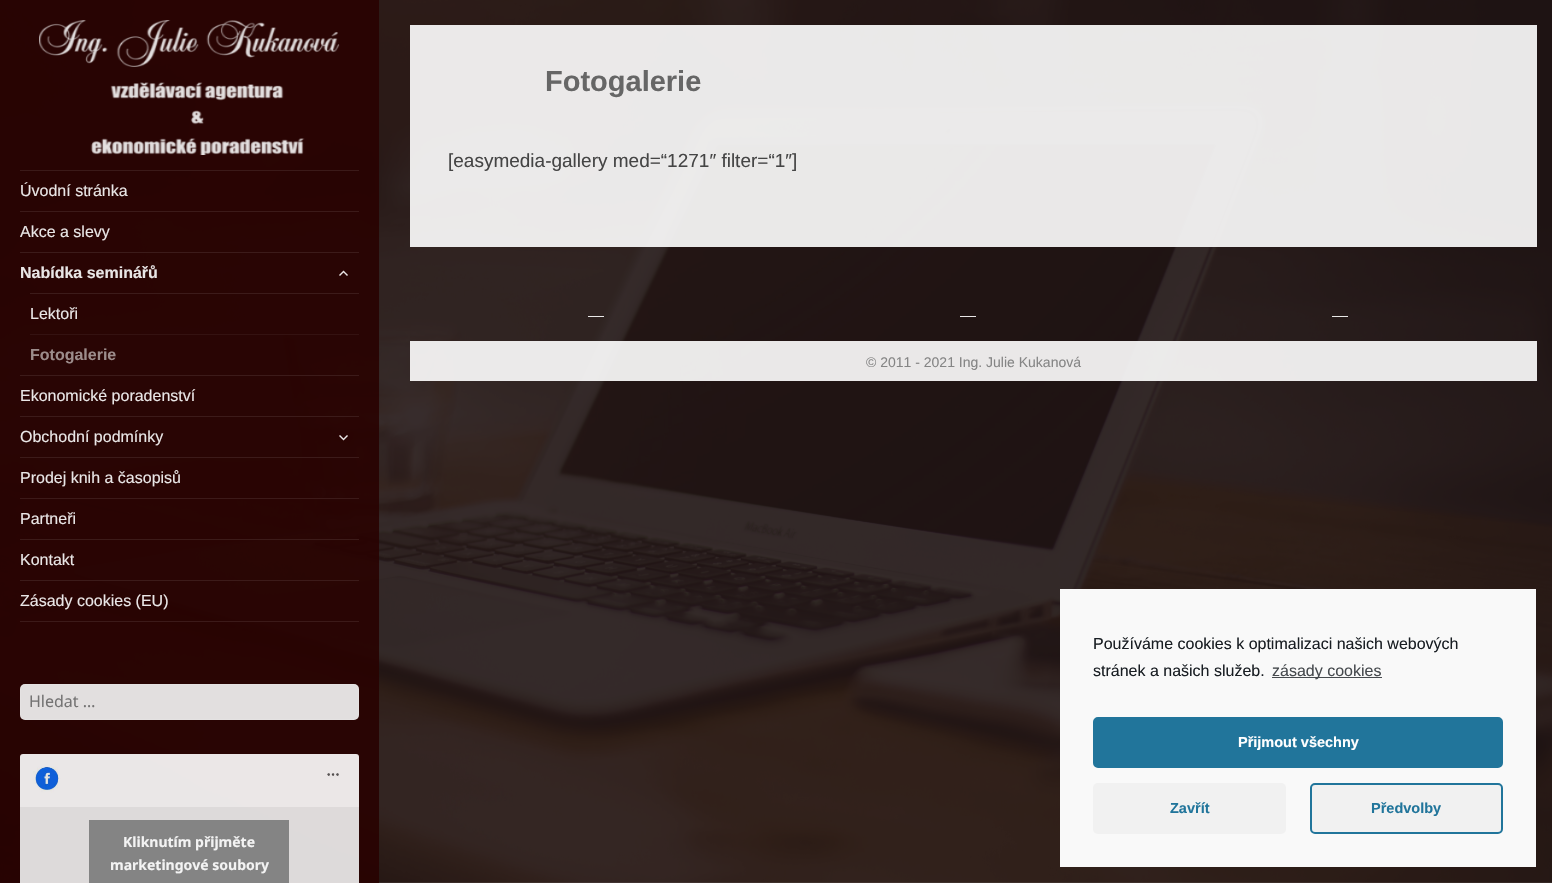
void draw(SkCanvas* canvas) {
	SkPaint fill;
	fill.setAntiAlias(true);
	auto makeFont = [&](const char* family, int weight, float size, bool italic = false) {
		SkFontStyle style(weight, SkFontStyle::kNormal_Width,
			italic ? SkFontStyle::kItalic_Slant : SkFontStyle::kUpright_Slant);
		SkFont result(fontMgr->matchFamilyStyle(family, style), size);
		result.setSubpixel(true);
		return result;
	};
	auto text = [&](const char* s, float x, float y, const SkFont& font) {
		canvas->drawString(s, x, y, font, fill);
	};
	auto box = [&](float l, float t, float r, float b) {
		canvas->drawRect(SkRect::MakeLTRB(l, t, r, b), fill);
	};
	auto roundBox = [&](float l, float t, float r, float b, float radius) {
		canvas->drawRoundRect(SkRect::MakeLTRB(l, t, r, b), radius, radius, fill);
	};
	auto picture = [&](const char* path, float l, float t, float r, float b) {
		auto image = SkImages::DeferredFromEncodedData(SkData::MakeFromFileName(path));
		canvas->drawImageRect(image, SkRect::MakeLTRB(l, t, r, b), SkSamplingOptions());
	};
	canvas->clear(0xFFFFFFFF);
	picture("image0.png", 0, 0, 1552, 883);
	fill.setColor(0xE6280100);
	box(0, 0, 379, 883);
	picture("image1.png", 39, 20, 340, 155);
	fill.setColor(0xFF3B1A19);
	box(20, 170, 359, 171);
	fill.setColor(0xFF3C1A19);
	box(20, 621, 359, 622);
	box(20, 211, 359, 212);
	fill.setColor(0xFF3C1B1A);
	box(20, 252, 359, 253);
	picture("image2.png", 339, 270, 348, 276);
	box(30, 293, 359, 294);
	fill.setColor(0xFF341211);
	box(30, 334, 359, 335);
	fill.setColor(0xFF3C1B1A);
	box(20, 375, 359, 376);
	box(20, 416, 359, 417);
	picture("image3.png", 339, 435, 348, 441);
	box(20, 457, 359, 458);
	fill.setColor(0xFF3C1A19);
	box(20, 498, 359, 499);
	fill.setColor(0xFF3C1B19);
	box(20, 539, 359, 540);
	fill.setColor(0xFF3C1B1A);
	box(20, 580, 359, 581);
	fill.setColor(0xFFE2DFDF);
	roundBox(20, 684, 359, 720, 5);
	fill.setStyle(SkPaint::kStroke_Style);
	fill.setStrokeWidth(1);
	fill.setColor(0x17FFFFFF);
	canvas->drawRoundRect(SkRect::MakeLTRB(20.5f, 684.5f, 358.5f, 719.5f), 4.5f, 4.5f, fill);
	picture("image4.png", 20, 754, 359, 883);
	fill.setStyle(SkPaint::kFill_Style);
	fill.setColor(0xFF848484);
	box(89, 820, 289, 883);
	fill.setColor(0xE6FFFFFF);
	box(410, 25, 1537, 247);
	fill.setColor(0xFFEAE9E9);
	box(588, 316, 604, 317);
	fill.setColor(0xFFE9E7E7);
	box(960, 316, 976, 317);
	fill.setColor(0xFFE9E8E8);
	box(1332, 316, 1348, 317);
	fill.setColor(0xE6FFFFFF);
	box(410, 341, 1537, 381);
	fill.setColor(0xFFF9F9F9);
	box(1060, 589, 1536, 867);
	fill.setColor(0xFF464A4E);
	box(1272, 677, 1382, 678);
	fill.setColor(0xFF21759B);
	canvas->drawRoundRect(SkRect::MakeLTRB(1094, 718, 1502, 767), 4, 4, fill);
	fill.setStyle(SkPaint::kStroke_Style);
	fill.setStrokeWidth(2);
	canvas->drawRoundRect(SkRect::MakeLTRB(1094, 718, 1502, 767), 4, 4, fill);
	fill.setStyle(SkPaint::kFill_Style);
	fill.setColor(0xFFF1F1F1);
	roundBox(1093, 783, 1286, 834, 5);
	canvas->drawRoundRect(SkRect::MakeLTRB(1311, 784, 1502, 833), 4, 4, fill);
	fill.setStyle(SkPaint::kStroke_Style);
	fill.setColor(0xFF21759B);
	canvas->drawRoundRect(SkRect::MakeLTRB(1311, 784, 1502, 833), 4, 4, fill);
	auto font1 = makeFont("Liberation Sans", 400, 16);
	fill.setStyle(SkPaint::kFill_Style);
	fill.setColor(0xFFE9E6E6);
	text("Úvodní stránka", 20, 196, font1);
	text("Akce a slevy", 20, 237, font1);
	auto font2 = makeFont("Liberation Sans", 700, 16);
	text("Nabídka seminářů", 20, 278, font2);
	text("Lektoři", 30, 319, font1);
	fill.setColor(0xFF9C8C8B);
	text("Fotogalerie", 30, 360, font2);
	fill.setColor(0xFFE9E6E6);
	text("Ekonomické poradenství", 20, 401, font1);
	text("Obchodní podmínky", 20, 442, font1);
	text("Prodej knih a časopisů", 20, 483, font1);
	text("Partneři", 20, 524, font1);
	text("Kontakt", 20, 565, font1);
	text("Zásady cookies (EU)", 20, 606, font1);
	auto font3 = makeFont("Noto Sans", 400, 16);
	fill.setColor(0xFF747373);
	text("Hledat …", 29, 707, font3);
	auto font4 = makeFont("Noto Sans", 700, 14);
	fill.setColor(0xFFF3F3F3);
	text("Kliknutím přijměte", 123, 847, font4);
	text("marketingové soubory", 110, 870, font4);
	auto font5 = makeFont("Liberation Sans", 700, 29);
	fill.setColor(0xFF666666);
	text("Fotogalerie", 545, 91, font5);
	auto font6 = makeFont("Liberation Sans", 400, 19);
	fill.setColor(0xFF454545);
	text("[easymedia-gallery med=“1271″ filter=“1″]", 448, 167, font6);
	auto font7 = makeFont("Liberation Sans", 400, 14);
	fill.setColor(0xFF858585);
	text("© 2011 - 2021 Ing. Julie Kukanová", 866, 367, font7);
	fill.setColor(0xFF191E23);
	text("Používáme cookies k optimalizaci našich webových", 1093, 649, font1);
	text("stránek a našich služeb.", 1093, 676, font1);
	fill.setColor(0xFF464A4E);
	text("zásady cookies", 1272, 676, font1);
	auto font8 = makeFont("Liberation Sans", 700, 14.5f);
	fill.setColor(0xFFFFFFFF);
	text("Přijmout všechny", 1238, 747, font8);
	fill.setColor(0xFF21759B);
	text("Zavřít", 1170, 813, font8);
	text("Předvolby", 1371, 813, font8);
}
